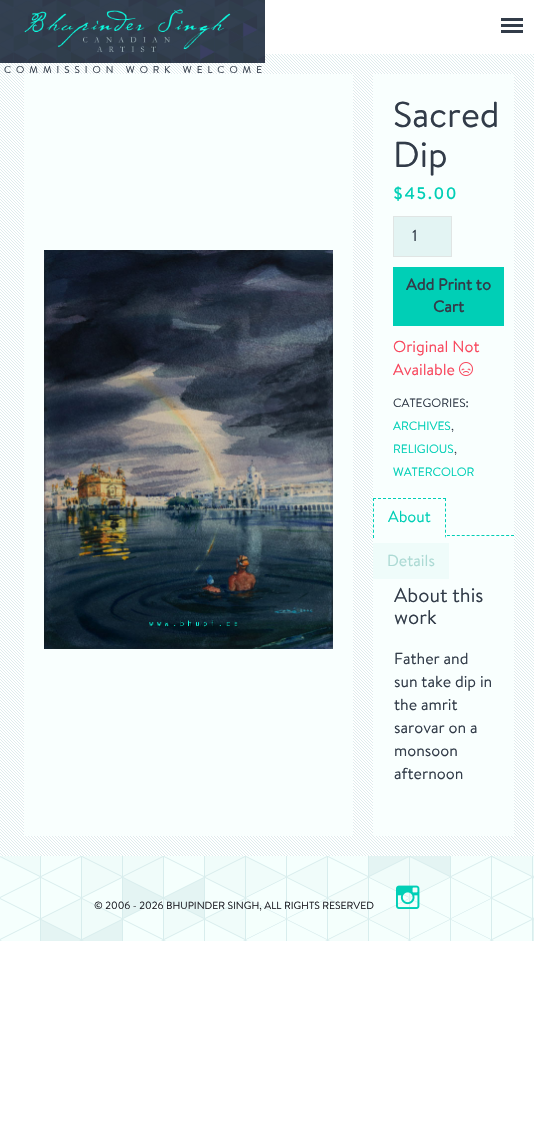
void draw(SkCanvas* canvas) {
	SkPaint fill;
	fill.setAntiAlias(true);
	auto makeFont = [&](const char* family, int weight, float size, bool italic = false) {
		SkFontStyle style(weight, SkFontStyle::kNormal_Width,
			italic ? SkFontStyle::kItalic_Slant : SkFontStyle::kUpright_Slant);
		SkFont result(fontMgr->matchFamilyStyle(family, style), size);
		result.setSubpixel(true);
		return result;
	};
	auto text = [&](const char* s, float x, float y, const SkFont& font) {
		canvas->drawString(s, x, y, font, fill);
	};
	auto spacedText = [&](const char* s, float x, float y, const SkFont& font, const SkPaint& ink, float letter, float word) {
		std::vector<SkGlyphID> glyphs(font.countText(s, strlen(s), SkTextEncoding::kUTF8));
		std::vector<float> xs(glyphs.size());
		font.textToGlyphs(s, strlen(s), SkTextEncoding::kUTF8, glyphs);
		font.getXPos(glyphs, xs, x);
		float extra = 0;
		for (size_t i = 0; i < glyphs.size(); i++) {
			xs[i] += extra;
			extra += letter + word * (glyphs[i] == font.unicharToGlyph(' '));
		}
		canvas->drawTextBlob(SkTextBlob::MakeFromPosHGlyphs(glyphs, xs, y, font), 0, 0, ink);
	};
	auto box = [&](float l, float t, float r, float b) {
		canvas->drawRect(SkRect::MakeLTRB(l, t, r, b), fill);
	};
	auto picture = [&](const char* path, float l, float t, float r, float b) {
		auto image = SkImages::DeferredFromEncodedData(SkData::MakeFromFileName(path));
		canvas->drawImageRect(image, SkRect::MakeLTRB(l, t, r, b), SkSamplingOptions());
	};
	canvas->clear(0xFFFFFFFF);
	picture("image1.png", 0, 54, 534, 856);
	picture("image0.png", 0, 0, 265, 63);
	fill.setColor(0xFF323C49);
	box(501, 18, 523, 21);
	box(501, 24, 523, 27);
	box(501, 30, 523, 33);
	fill.setColor(0xFFF9FFFE);
	box(24, 74, 353, 836);
	picture("image2.png", 44, 250, 333, 649);
	box(373, 74, 514, 836);
	fill.setColor(0xFFE3F4F3);
	canvas->drawRect(SkRect::MakeLTRB(393.5f, 216.5f, 451.5f, 256.5f), fill);
	fill.setStyle(SkPaint::kStroke_Style);
	fill.setStrokeWidth(1);
	fill.setColor(0xFFE0E5E4);
	canvas->drawRect(SkRect::MakeLTRB(393.5f, 216.5f, 451.5f, 256.5f), fill);
	fill.setStyle(SkPaint::kFill_Style);
	fill.setColor(0xFF00CFB6);
	box(393, 267, 504, 326);
	picture("image3.png", 459, 362, 473, 376);
	fill.setStyle(SkPaint::kStroke_Style);
	fill.setPathEffect(SkDashPathEffect::Make({{3, 1.93f}}, 0));
	canvas->drawPath(SkPathBuilder().moveTo(373, 535.5f).lineTo(514, 535.5f).detach(), fill);
	fill.setPathEffect(nullptr);
	fill.setStyle(SkPaint::kFill_Style);
	fill.setColor(0xFFF9FFFE);
	box(373, 535, 446, 536);
	fill.setStyle(SkPaint::kStroke_Style);
	fill.setColor(0xFF00CFB6);
	fill.setPathEffect(SkDashPathEffect::Make({{3, 2}}, 0));
	canvas->drawPath(SkPathBuilder().moveTo(373, 498.5f).lineTo(446, 498.5f).detach(), fill);
	fill.setPathEffect(nullptr);
	fill.setPathEffect(SkDashPathEffect::Make({{3, 2.29f}}, 0));
	canvas->drawPath(SkPathBuilder().moveTo(445.5f, 498).lineTo(445.5f, 538).detach(), fill);
	fill.setPathEffect(nullptr);
	fill.setStyle(SkPaint::kFill_Style);
	fill.setColor(0xFFF9FFFE);
	canvas->drawPath(SkPathBuilder().moveTo(446, 538).lineTo(373, 538).lineTo(374, 536).lineTo(445, 536).close().detach(), fill);
	fill.setStyle(SkPaint::kStroke_Style);
	fill.setColor(0xFF00CFB6);
	fill.setPathEffect(SkDashPathEffect::Make({{3, 2.29f}}, 0));
	canvas->drawPath(SkPathBuilder().moveTo(373.5f, 498).lineTo(373.5f, 538).detach(), fill);
	fill.setPathEffect(nullptr);
	fill.setStyle(SkPaint::kFill_Style);
	fill.setColor(0xFFEFFCFA);
	box(373, 543, 449, 579);
	fill.setColor(0xFFD8EDED);
	box(0, 856, 534, 941);
	picture("image4.png", 0, 856, 534, 941);
	picture("image5.png", 396, 885, 420, 909);
	auto font1 = makeFont("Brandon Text", 400, 10);
	fill.setColor(0xFF323C49);
	spacedText("COMMISSION WORK WELCOME", 4, 73, font1, fill, 5, 0);
	auto font2 = makeFont("Brandon Text", 400, 36);
	text("Sacred", 393, 127, font2);
	text("Dip", 393, 167, font2);
	auto font3 = makeFont("Brandon Text", 700, 16);
	fill.setColor(0xFF00CFB6);
	spacedText("$45.00", 393, 199, font3, fill, 2, 0);
	auto font4 = makeFont("Brandon Text", 400, 16);
	fill.setColor(0xFF323C49);
	text("1", 412, 241, font4);
	text("Add Print to", 406, 290, font3);
	text("Cart", 433, 312, font3);
	fill.setColor(0xFFF8485E);
	text("Original Not", 393, 352, font4);
	text("Available", 393, 375, font4);
	auto font5 = makeFont("Brandon Text", 400, 12);
	fill.setColor(0xFF323C49);
	text("CATEGORIES:", 393, 407, font5);
	fill.setColor(0xFF00CFB6);
	text("ARCHIVES", 393, 430, font5);
	fill.setColor(0xFF323C49);
	text(",", 451, 430, font5);
	fill.setColor(0xFF00CFB6);
	text("RELIGIOUS", 393, 453, font5);
	fill.setColor(0xFF323C49);
	text(",", 454, 453, font5);
	fill.setColor(0xFF00CFB6);
	text("WATERCOLOR", 393, 476, font5);
	text("About", 388, 522, font4);
	fill.setColor(0xFFACDAD4);
	text("Details", 387, 566, font4);
	auto font6 = makeFont("Brandon Text", 400, 20);
	fill.setColor(0xFF323C49);
	text("About this", 394, 602, font6);
	text("work", 394, 624, font6);
	text("Father and", 394, 664, font4);
	text("sun take dip in", 394, 687, font4);
	text("the amrit", 394, 710, font4);
	text("sarovar on a", 394, 733, font4);
	text("monsoon", 394, 756, font4);
	text("afternoon", 394, 779, font4);
	auto font7 = makeFont("Brandon Text", 400, 10.4f);
	fill.setColor(0xFF1D1D24);
	text("© 2006 - 2026 BHUPINDER SINGH, ALL RIGHTS RESERVED", 94, 909, font7);
}
